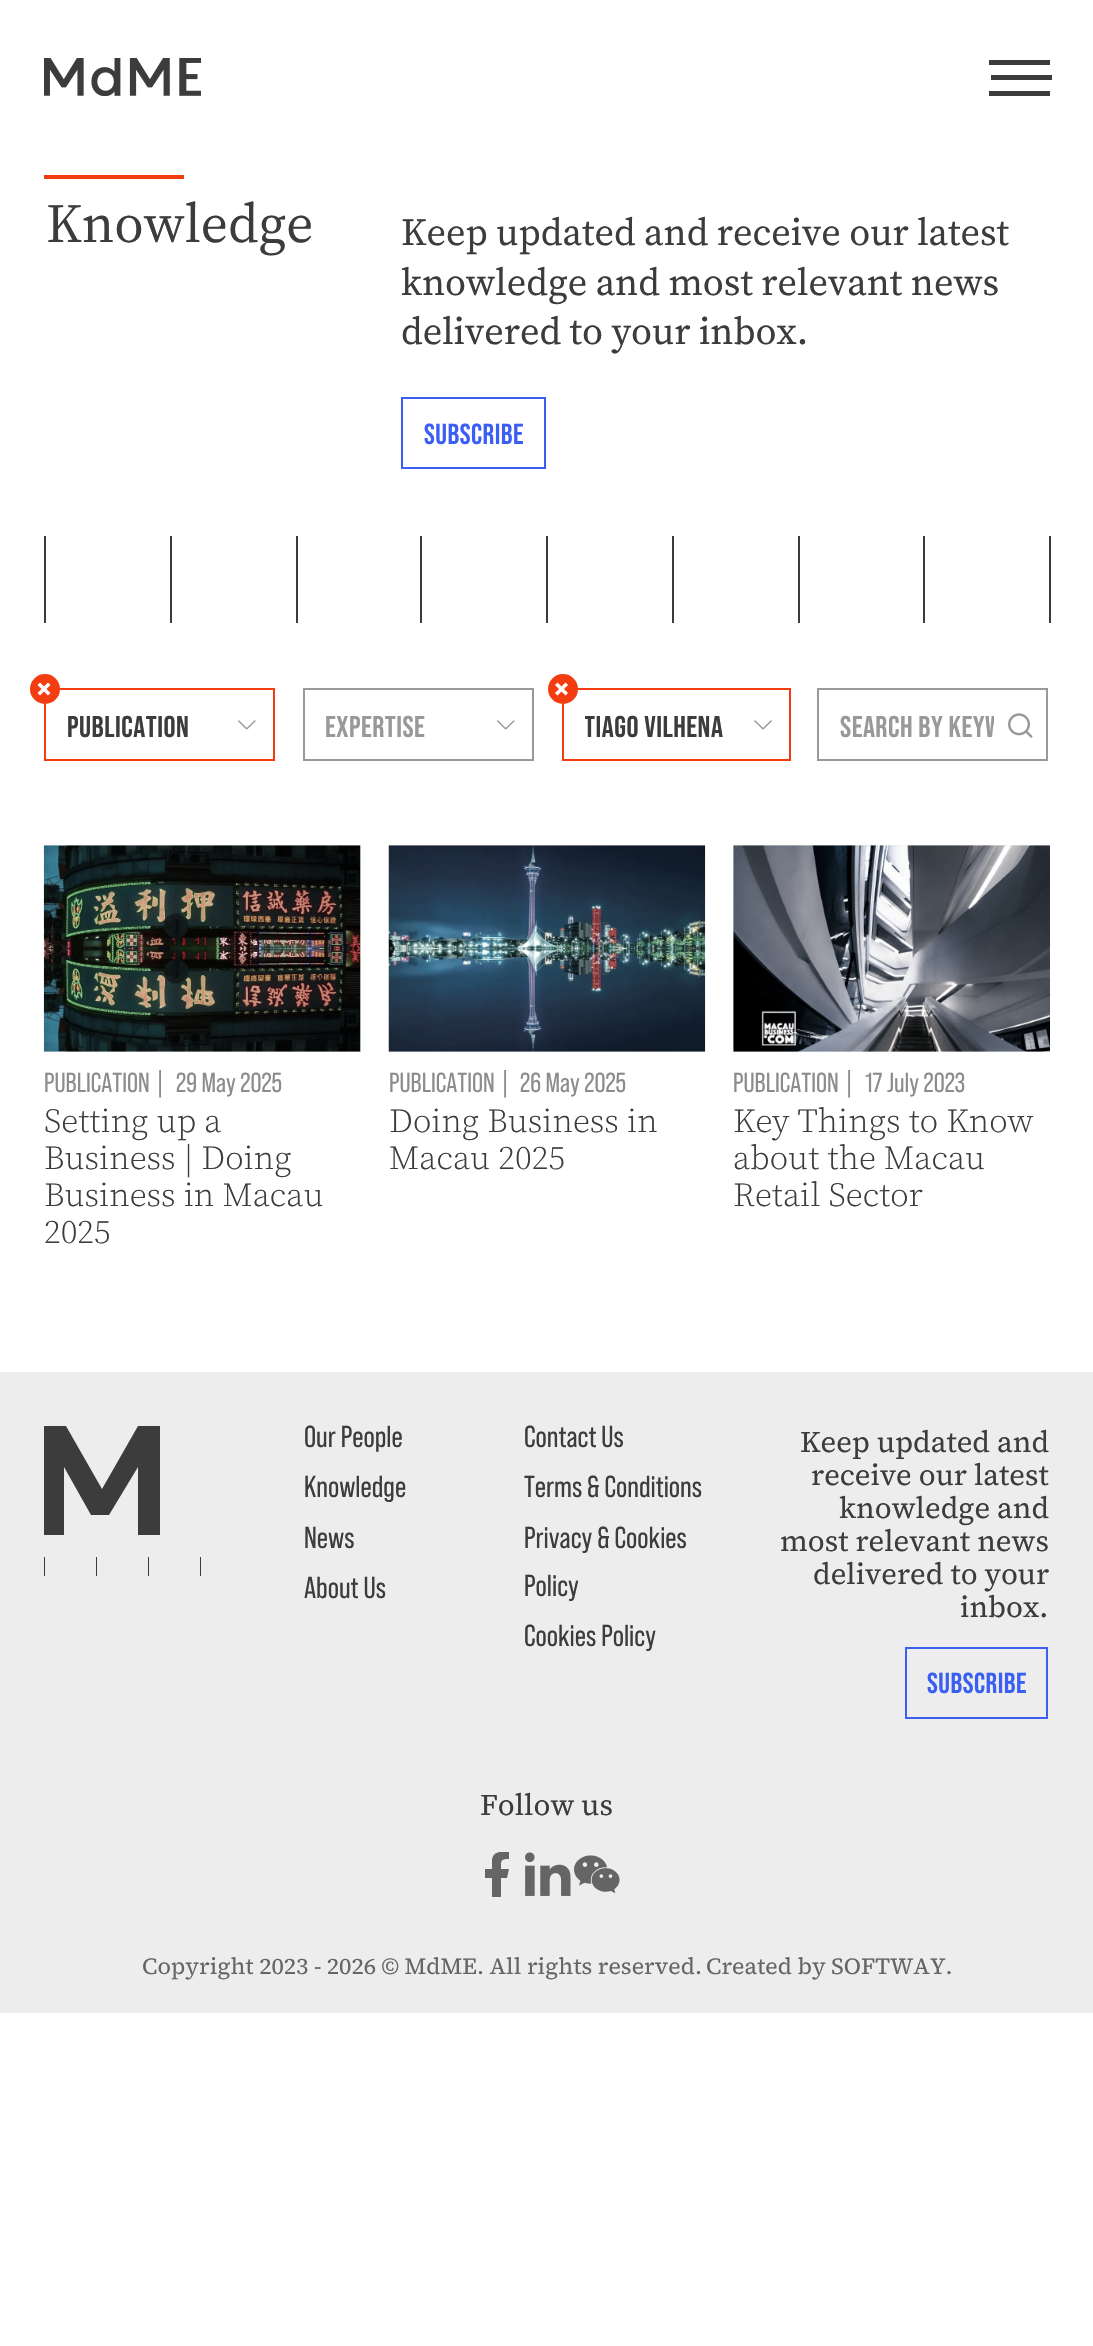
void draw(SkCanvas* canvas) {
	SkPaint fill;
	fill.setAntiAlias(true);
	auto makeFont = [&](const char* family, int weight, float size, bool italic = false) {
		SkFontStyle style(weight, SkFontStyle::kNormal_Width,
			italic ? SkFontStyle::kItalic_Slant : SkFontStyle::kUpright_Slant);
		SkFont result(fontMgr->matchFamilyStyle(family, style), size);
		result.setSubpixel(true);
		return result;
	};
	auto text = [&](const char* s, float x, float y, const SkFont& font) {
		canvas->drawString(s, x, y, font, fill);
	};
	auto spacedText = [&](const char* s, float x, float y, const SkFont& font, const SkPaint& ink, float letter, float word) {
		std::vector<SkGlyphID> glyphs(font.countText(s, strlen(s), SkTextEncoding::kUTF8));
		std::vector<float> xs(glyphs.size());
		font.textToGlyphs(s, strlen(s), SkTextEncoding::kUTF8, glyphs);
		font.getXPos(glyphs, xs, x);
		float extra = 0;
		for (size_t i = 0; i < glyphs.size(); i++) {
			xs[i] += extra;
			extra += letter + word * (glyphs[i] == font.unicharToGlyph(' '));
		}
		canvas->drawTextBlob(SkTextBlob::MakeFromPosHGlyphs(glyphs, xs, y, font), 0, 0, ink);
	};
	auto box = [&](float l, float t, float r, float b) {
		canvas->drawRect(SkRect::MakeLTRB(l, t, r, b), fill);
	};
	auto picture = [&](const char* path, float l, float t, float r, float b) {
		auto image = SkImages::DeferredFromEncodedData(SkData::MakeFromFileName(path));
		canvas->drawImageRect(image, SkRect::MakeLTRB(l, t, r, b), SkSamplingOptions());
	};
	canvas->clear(0xFFFFFFFF);
	picture("image0.png", 44, 58, 201, 96);
	fill.setColor(0xFF3C3C3C);
	box(989, 60, 1050, 65);
	box(991, 75, 1052, 80);
	box(989, 91, 1050, 96);
	fill.setColor(0xFFF33C10);
	box(44, 175, 184, 179);
	fill.setStyle(SkPaint::kStroke_Style);
	fill.setStrokeWidth(2);
	fill.setColor(0xFF3A5FF2);
	canvas->drawRect(SkRect::MakeLTRB(402, 398, 545, 468), fill);
	fill.setStyle(SkPaint::kFill_Style);
	fill.setColor(0xFF3C3C3C);
	box(44, 536, 46, 623);
	box(170, 536, 172, 623);
	box(296, 536, 298, 623);
	box(420, 536, 422, 623);
	box(546, 536, 548, 623);
	box(672, 536, 674, 623);
	box(798, 536, 800, 623);
	box(923, 536, 925, 623);
	box(1049, 536, 1051, 623);
	fill.setStyle(SkPaint::kStroke_Style);
	fill.setColor(0xFFF33C10);
	canvas->drawRect(SkRect::MakeLTRB(45, 689, 274, 760), fill);
	fill.setStyle(SkPaint::kFill_Style);
	canvas->drawCircle(45, 689, 15, fill);
	fill.setColor(0xFFFFFFFF);
	canvas->drawPath(SkPathBuilder().moveTo(37.5f, 693).lineTo(48, 682.5f).lineTo(50.5f, 685).lineTo(40, 695.5f).close().detach(), fill);
	canvas->drawPath(SkPathBuilder().moveTo(40, 682.5f).lineTo(50.5f, 693).lineTo(48, 695.5f).lineTo(37.5f, 685).close().detach(), fill);
	picture("image1.png", 238, 720, 256, 730);
	fill.setStyle(SkPaint::kStroke_Style);
	fill.setColor(0xFF999999);
	canvas->drawRect(SkRect::MakeLTRB(304, 689, 533, 760), fill);
	picture("image1.png", 497, 720, 515, 730);
	fill.setColor(0xFFF33C10);
	canvas->drawRect(SkRect::MakeLTRB(563, 689, 790, 760), fill);
	fill.setStyle(SkPaint::kFill_Style);
	canvas->drawCircle(563, 689, 15, fill);
	fill.setColor(0xFFFFFFFF);
	canvas->drawPath(SkPathBuilder().moveTo(555, 693).lineTo(565.5f, 682.5f).lineTo(568, 685).lineTo(557.5f, 695.5f).close().detach(), fill);
	canvas->drawPath(SkPathBuilder().moveTo(557.5f, 682.5f).lineTo(568, 693).lineTo(565.5f, 695.5f).lineTo(555, 685).close().detach(), fill);
	picture("image2.png", 754, 720, 772, 730);
	fill.setStyle(SkPaint::kStroke_Style);
	fill.setColor(0xFF999999);
	canvas->drawRect(SkRect::MakeLTRB(818, 689, 1047, 760), fill);
	picture("image3.png", 1008, 713, 1033, 738);
	fill.setStyle(SkPaint::kFill_Style);
	fill.setColor(0xFFEDEDED);
	box(44, 845, 361, 1052);
	picture("image4.png", 43, 845, 361, 1052);
	box(389, 845, 705, 1052);
	picture("image5.png", 388, 845, 706, 1052);
	box(733, 845, 1050, 1052);
	picture("image6.png", 733, 845, 1050, 1052);
	box(0, 1372, 1093, 2013);
	fill.setColor(0xFF3C3C3C);
	canvas->drawPath(SkPathBuilder().moveTo(149, 1557).lineTo(148, 1557).lineTo(148, 1576).lineTo(149, 1576).close().moveTo(45, 1557).lineTo(44, 1557).lineTo(44, 1576).lineTo(45, 1576).close().moveTo(97, 1557).lineTo(96, 1557).lineTo(96, 1576).lineTo(97, 1576).close().moveTo(201, 1557).lineTo(200, 1557).lineTo(200, 1576).lineTo(201, 1576).close().moveTo(102, 1489).lineTo(66, 1426).lineTo(44, 1426).lineTo(44, 1535).lineTo(64, 1535).lineTo(64, 1467).lineTo(91, 1515).lineTo(109, 1515).lineTo(138, 1467).lineTo(138, 1535).lineTo(160, 1535).lineTo(160, 1426).lineTo(138, 1426).close().detach(), fill);
	fill.setStyle(SkPaint::kStroke_Style);
	fill.setColor(0xFF3A5FF2);
	canvas->drawRect(SkRect::MakeLTRB(906, 1648, 1047, 1718), fill);
	canvas->save();
	canvas->clipRect(SkRect::MakeLTRB(474, 1852, 520, 1897));
	fill.setStyle(SkPaint::kFill_Style);
	fill.setColor(0xFF656565);
	canvas->drawPath(SkPathBuilder().moveTo(501, 1878).lineTo(507, 1878).lineTo(509, 1869).lineTo(501, 1869).cubicTo(501, 1861, 500, 1859, 509, 1859).lineTo(509, 1852).cubicTo(502, 1851, 493, 1851, 492, 1860).lineTo(492, 1869).lineTo(485, 1869).lineTo(485, 1878).lineTo(492, 1878).lineTo(492, 1897).lineTo(501, 1897).close().detach(), fill);
	canvas->restore();
	picture("image7.png", 525, 1852, 571, 1896);
	picture("image8.png", 574, 1855, 620, 1893);
	auto font1 = makeFont("Source Serif 4", 400, 55);
	fill.setColor(0xFF3C3C3C);
	text("Knowledge", 46, 242, font1);
	auto font2 = makeFont("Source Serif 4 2", 400, 38.25f);
	spacedText("Keep updated and receive our latest", 401, 245, font2, fill, 0, -0.5f);
	spacedText("knowledge and most relevant news", 401, 295, font2, fill, 0, -0.5f);
	spacedText("delivered to your inbox.", 401, 344, font2, fill, 0, -0.5f);
	auto font3 = makeFont("Bebas Neue", 700, 29);
	fill.setColor(0xFF3A5FF2);
	spacedText("SUBSCRIBE", 424, 444, font3, fill, 0.5f, 0);
	auto font4 = makeFont("Bebas Neue", 700, 30);
	fill.setColor(0xFF3C3C3C);
	spacedText("PUBLICATION", 67, 737, font4, fill, 0.5f, 0);
	fill.setColor(0xFF999999);
	spacedText("EXPERTISE", 325, 737, font4, fill, 0.5f, 0);
	canvas->save();
	canvas->clipRect(SkRect::MakeLTRB(585, 707, 723, 742));
	fill.setColor(0xFF3C3C3C);
	spacedText("TIAGO VILHENA", 584, 737, font4, fill, 0.5f, 0);
	canvas->restore();
	canvas->save();
	canvas->clipRect(SkRect::MakeLTRB(840, 707, 994, 742));
	fill.setColor(0xFF999999);
	spacedText("SEARCH BY KEYW", 840, 737, font4, fill, 0.5f, 0);
	canvas->restore();
	auto font5 = makeFont("Bebas Neue", 400, 27.5f);
	fill.setColor(0xFF8C8C8C);
	text("PUBLICATION", 44, 1092, font5);
	text("|", 156, 1092, font5);
	text("29 May 2025", 176, 1092, font5);
	auto font6 = makeFont("Source Serif 4", 300, 33.5f);
	fill.setColor(0xFF3C3C3C);
	text("Setting up a", 44, 1132, font6);
	text("Business | Doing", 44, 1169, font6);
	text("Business in Macau", 44, 1206, font6);
	text("2025", 44, 1243, font6);
	fill.setColor(0xFF8C8C8C);
	text("PUBLICATION", 389, 1092, font5);
	text("|", 501, 1092, font5);
	text("26 May 2025", 520, 1092, font5);
	fill.setColor(0xFF3C3C3C);
	text("Doing Business in", 389, 1132, font6);
	text("Macau 2025", 389, 1169, font6);
	fill.setColor(0xFF8C8C8C);
	text("PUBLICATION", 733, 1092, font5);
	text("|", 845, 1092, font5);
	text("17 July 2023", 865, 1092, font5);
	fill.setColor(0xFF3C3C3C);
	text("Key Things to Know", 733, 1132, font6);
	text("about the Macau", 733, 1169, font6);
	text("Retail Sector", 733, 1206, font6);
	auto font7 = makeFont("Bebas Neue", 400, 30.25f);
	text("Our People", 304, 1447, font7);
	text("Knowledge", 304, 1497, font7);
	text("News", 304, 1548, font7);
	text("About Us", 304, 1598, font7);
	text("Contact Us", 524, 1447, font7);
	text("Terms & Conditions", 524, 1497, font7);
	text("Privacy & Cookies", 524, 1548, font7);
	text("Policy", 524, 1596, font7);
	text("Cookies Policy", 524, 1646, font7);
	auto font8 = makeFont("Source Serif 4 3", 400, 30);
	text("Keep updated and", 800, 1452, font8);
	text("receive our latest", 811, 1485, font8);
	text("knowledge and", 839, 1518, font8);
	text("most relevant news", 780, 1551, font8);
	text("delivered to your", 813, 1584, font8);
	text("inbox.", 960, 1617, font8);
	fill.setColor(0xFF3A5FF2);
	spacedText("SUBSCRIBE", 927, 1693, font3, fill, 0.5f, 0);
	fill.setColor(0xFF3C3C3C);
	text("Follow us", 480, 1815, font8);
	auto font9 = makeFont("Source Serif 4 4", 400, 23.1f);
	fill.setColor(0xFF656565);
	text("Copyright 2023 - 2026 © MdME. All rights reserved.", 142, 1974, font9);
	text("Created by SOFTWAY.", 706, 1974, font9);
}
